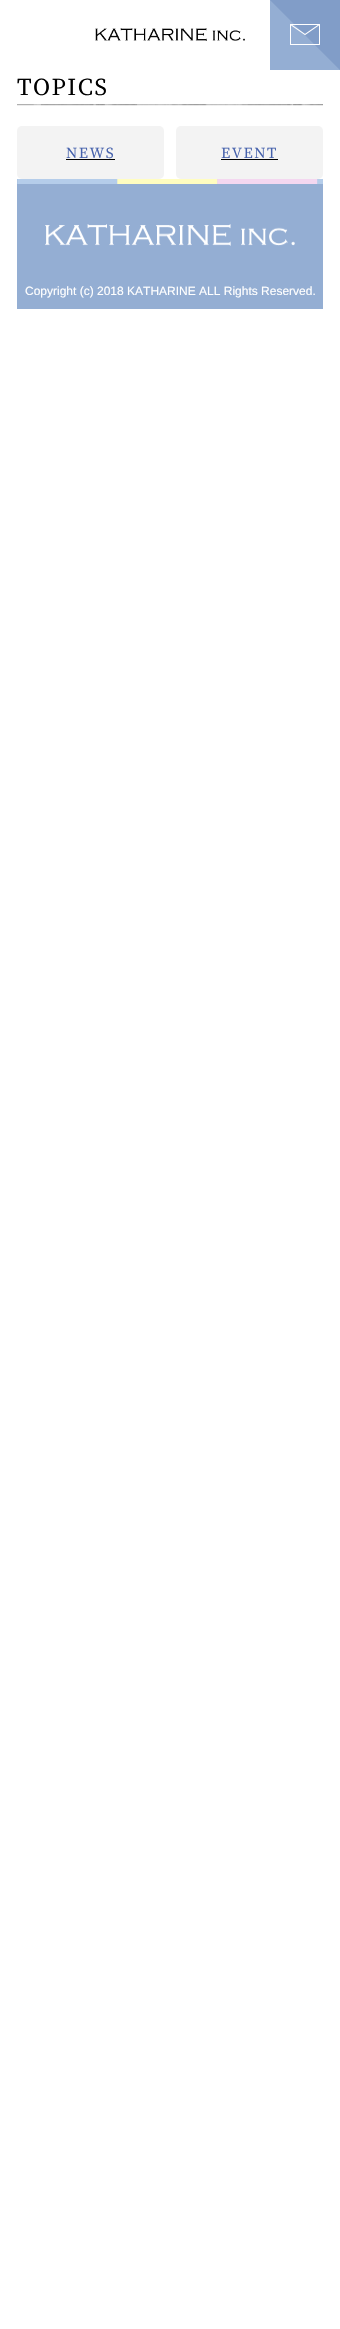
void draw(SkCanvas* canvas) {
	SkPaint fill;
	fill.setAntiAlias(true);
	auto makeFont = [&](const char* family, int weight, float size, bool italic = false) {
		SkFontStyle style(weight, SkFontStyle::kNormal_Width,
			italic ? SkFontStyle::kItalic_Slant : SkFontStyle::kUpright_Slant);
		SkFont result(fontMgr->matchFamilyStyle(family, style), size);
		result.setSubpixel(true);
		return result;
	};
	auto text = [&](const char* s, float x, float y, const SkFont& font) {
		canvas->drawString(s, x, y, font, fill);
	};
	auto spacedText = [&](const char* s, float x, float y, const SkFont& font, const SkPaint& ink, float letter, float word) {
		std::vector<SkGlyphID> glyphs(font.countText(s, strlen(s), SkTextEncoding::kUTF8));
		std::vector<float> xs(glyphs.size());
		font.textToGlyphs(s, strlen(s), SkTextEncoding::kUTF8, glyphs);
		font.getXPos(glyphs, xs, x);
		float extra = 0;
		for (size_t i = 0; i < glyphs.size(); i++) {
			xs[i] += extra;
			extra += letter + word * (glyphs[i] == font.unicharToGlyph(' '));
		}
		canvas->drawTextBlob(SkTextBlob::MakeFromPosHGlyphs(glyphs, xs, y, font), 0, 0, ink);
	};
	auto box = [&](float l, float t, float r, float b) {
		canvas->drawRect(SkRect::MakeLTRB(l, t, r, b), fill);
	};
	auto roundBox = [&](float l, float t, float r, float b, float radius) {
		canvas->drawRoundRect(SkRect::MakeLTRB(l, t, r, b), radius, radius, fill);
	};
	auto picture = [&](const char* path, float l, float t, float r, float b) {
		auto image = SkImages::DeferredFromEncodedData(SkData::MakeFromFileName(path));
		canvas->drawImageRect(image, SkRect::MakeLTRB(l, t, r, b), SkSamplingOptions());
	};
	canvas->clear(0xFFFFFFFF);
	picture("image0.png", 95, 28, 245, 41);
	picture("image1.png", 270, 0, 340, 70);
	picture("image2.png", 17, 104, 323, 106);
	fill.setColor(0xFFF3F3F3);
	roundBox(17, 126, 164, 179, 5);
	fill.setColor(0xFF000000);
	box(66, 159, 115, 160);
	fill.setColor(0xFFF3F3F3);
	roundBox(176, 126, 323, 179, 5);
	fill.setColor(0xFF000000);
	box(221, 159, 278, 160);
	fill.setColor(0xFF94AED3);
	box(17, 179, 323, 309);
	picture("image3.png", 17, 179, 323, 184);
	picture("image4.png", 45, 224, 295, 246);
	auto font1 = makeFont("Noto Serif CJK JP", 500, 22);
	fill.setColor(0xFF000000);
	spacedText("TOPICS", 17, 95, font1, fill, 1.5f, 0);
	auto font2 = makeFont("Noto Serif CJK JP", 500, 14);
	fill.setColor(0xFF4561AC);
	spacedText("NEWS", 66, 158, font2, fill, 1.5f, 0);
	spacedText("EVENT", 221, 158, font2, fill, 1.5f, 0);
	auto font3 = makeFont("Liberation Sans", 400, 12);
	fill.setColor(0xFFFFFFFF);
	text("Copyright (c) 2018 KATHARINE ALL Rights Reserved.", 25, 295, font3);
}
